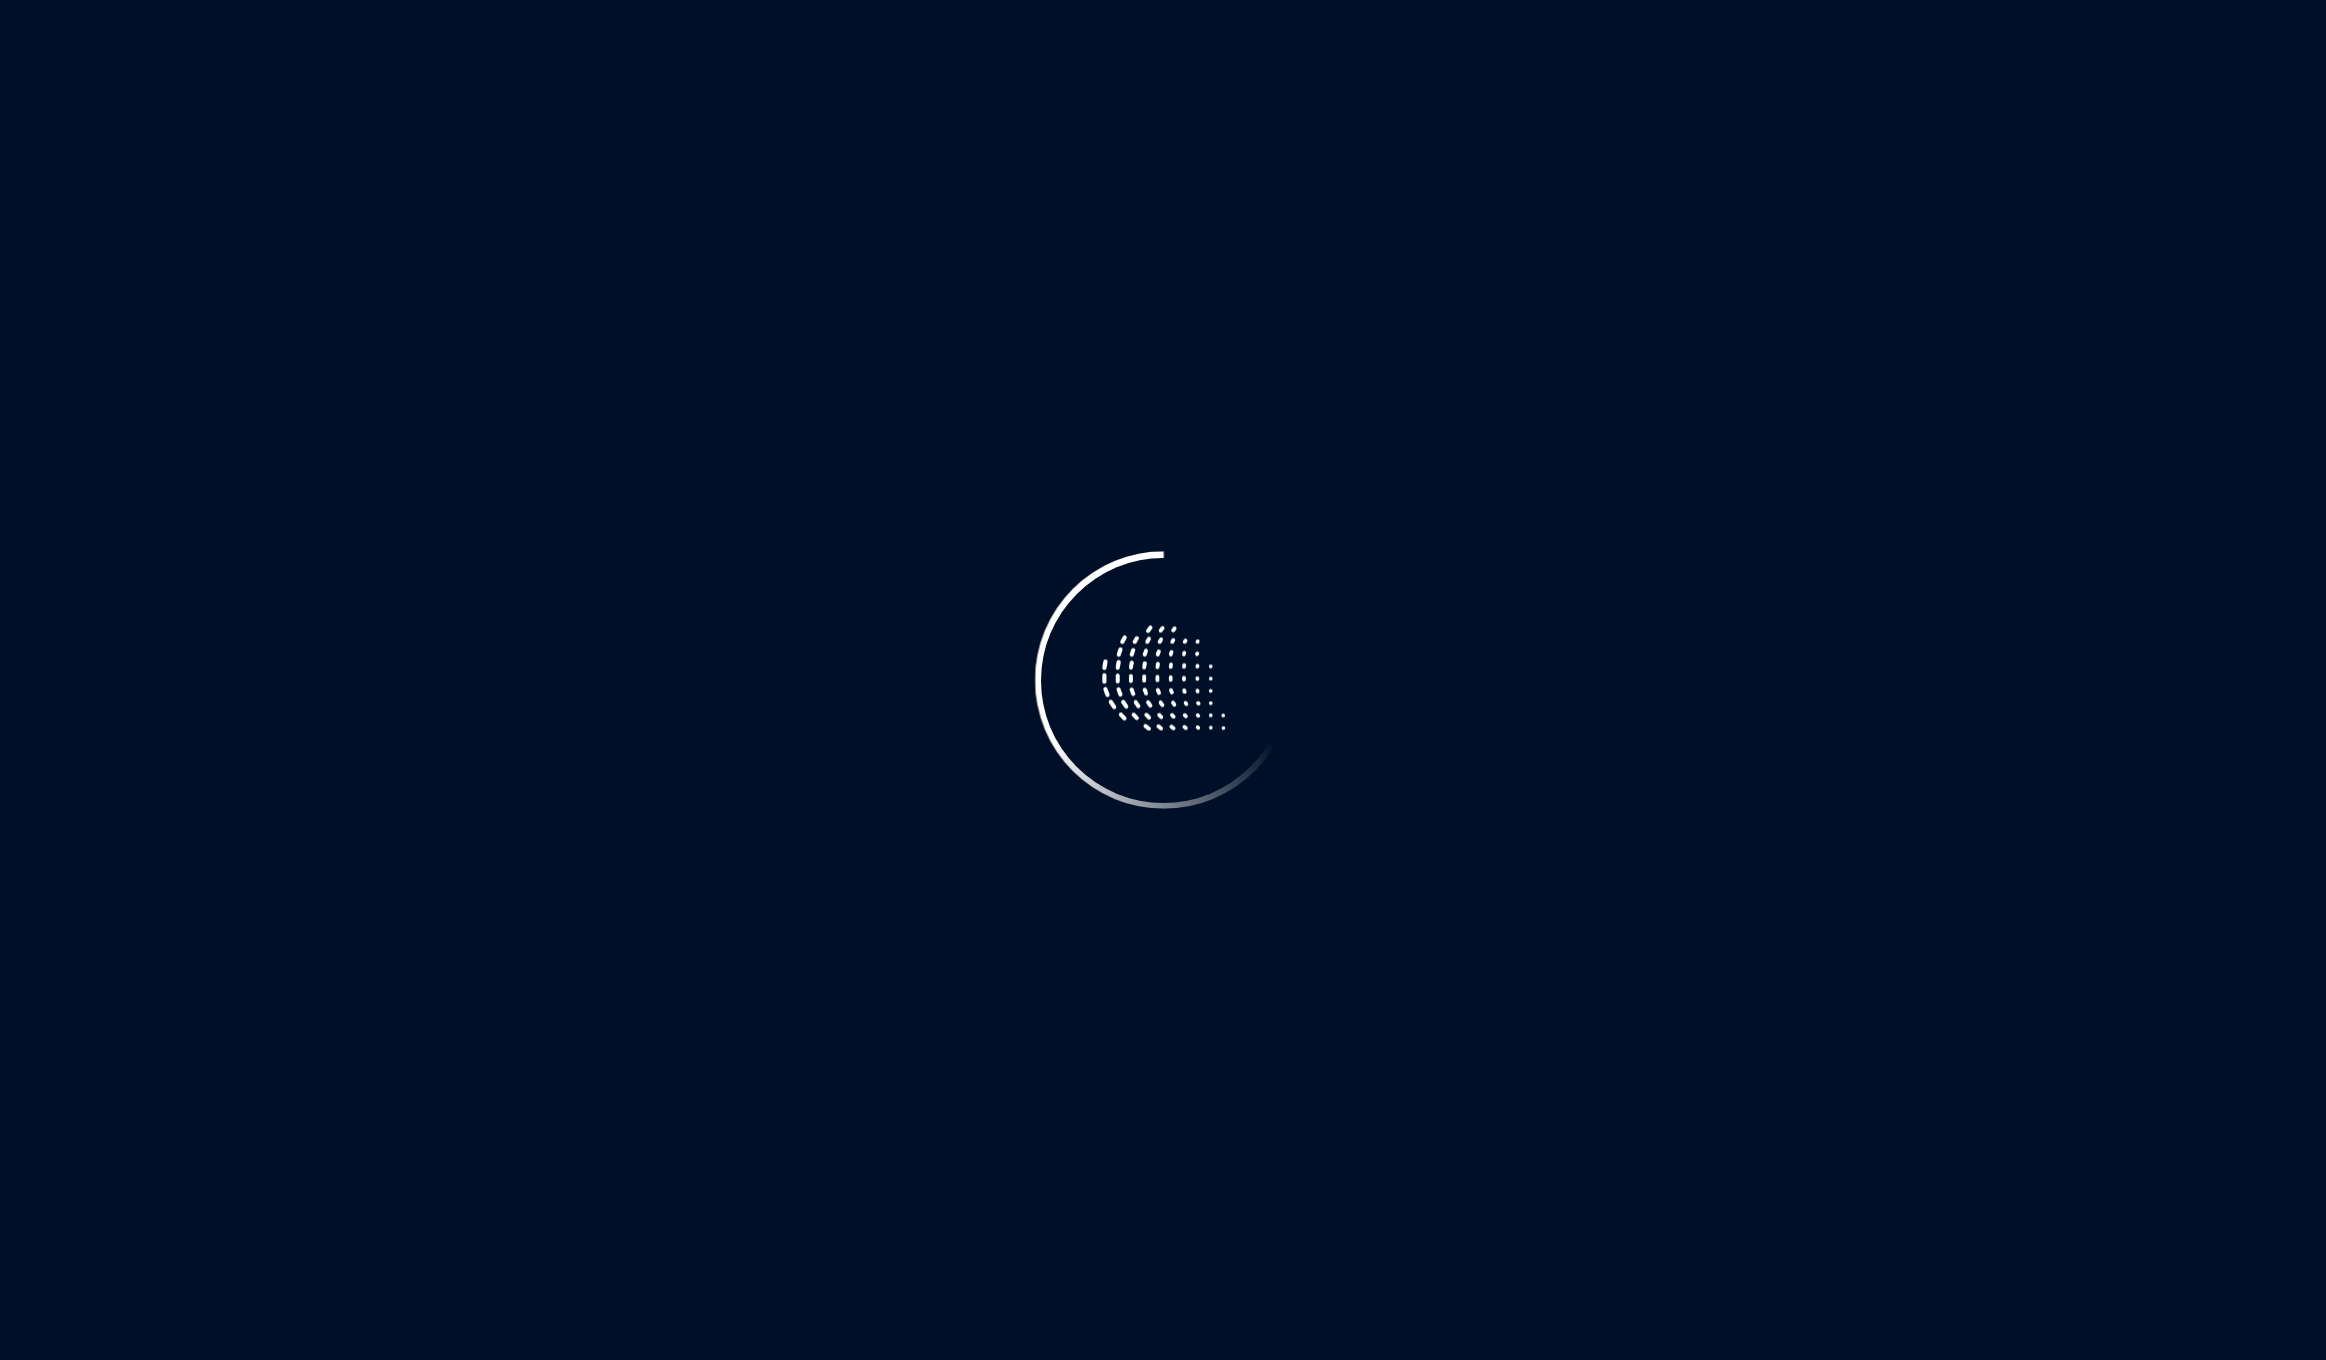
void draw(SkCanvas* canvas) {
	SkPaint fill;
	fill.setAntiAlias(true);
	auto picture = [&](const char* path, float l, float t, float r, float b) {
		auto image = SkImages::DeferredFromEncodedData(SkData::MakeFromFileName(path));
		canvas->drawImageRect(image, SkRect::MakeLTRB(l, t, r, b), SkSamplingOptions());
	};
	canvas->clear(0xFF000F28);
	picture("image0.png", 1034, 551, 1273, 809);
	fill.setColor(0xFF000F28);
	canvas->drawCircle(1163.5f, 680.5f, 122.5f, fill);
	picture("image1.png", 1102, 625, 1226, 731);
}
